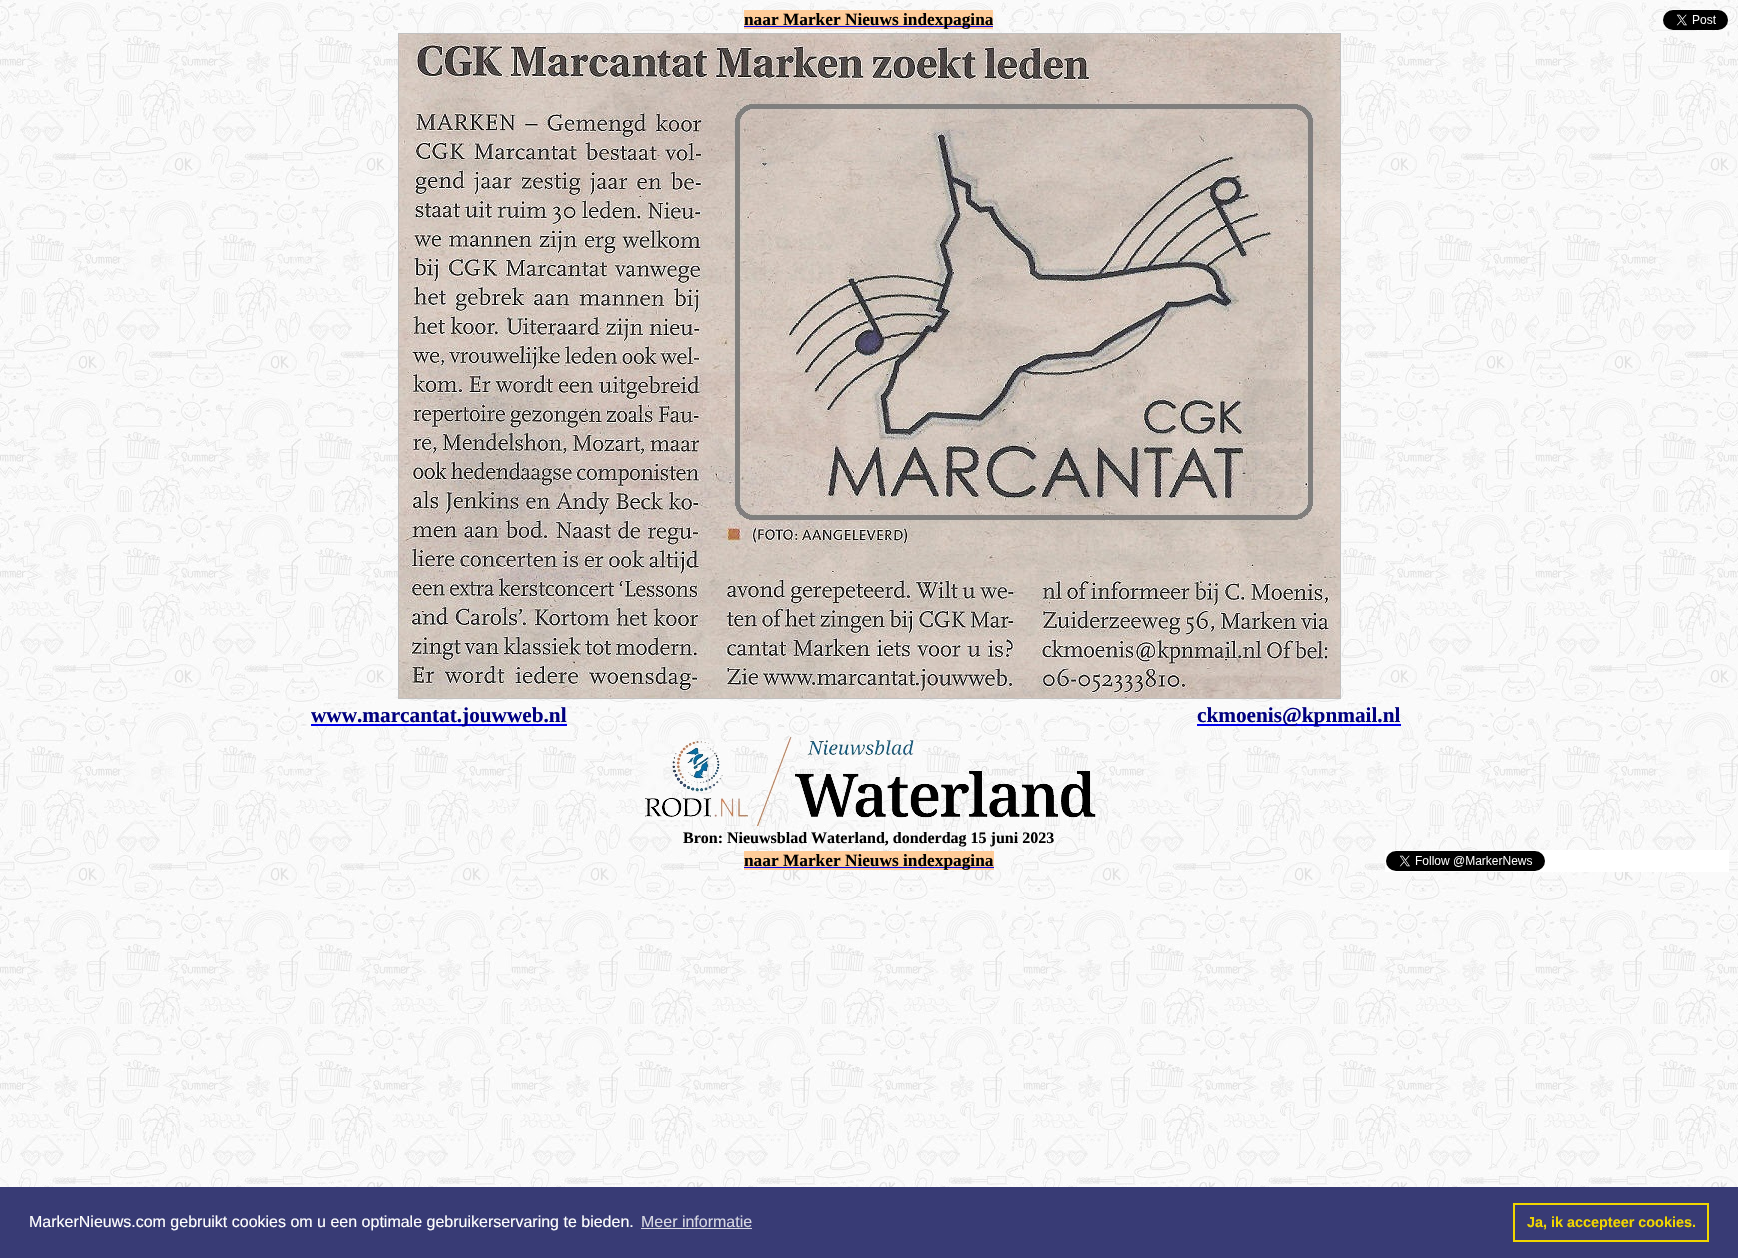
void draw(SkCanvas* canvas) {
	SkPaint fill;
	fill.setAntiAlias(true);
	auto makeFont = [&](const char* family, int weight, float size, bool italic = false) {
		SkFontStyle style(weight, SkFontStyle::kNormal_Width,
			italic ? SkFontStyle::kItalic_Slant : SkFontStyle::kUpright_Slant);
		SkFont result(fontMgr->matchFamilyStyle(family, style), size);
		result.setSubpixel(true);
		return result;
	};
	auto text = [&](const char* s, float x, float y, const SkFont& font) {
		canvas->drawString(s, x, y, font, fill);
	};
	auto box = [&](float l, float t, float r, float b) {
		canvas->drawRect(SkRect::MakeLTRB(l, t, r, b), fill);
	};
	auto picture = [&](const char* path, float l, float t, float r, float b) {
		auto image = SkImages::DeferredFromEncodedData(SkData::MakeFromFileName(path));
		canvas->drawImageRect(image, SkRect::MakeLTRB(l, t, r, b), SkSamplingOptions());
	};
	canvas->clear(0xFFFFFFFF);
	picture("image0.png", 0, 0, 1738, 1187);
	fill.setColor(0xFFFFCC99);
	box(744, 10, 993, 29);
	fill.setColor(0xFF0000EE);
	box(744, 26, 993, 27);
	picture("image1.png", 1663, 10, 1728, 30);
	fill.setStyle(SkPaint::kStroke_Style);
	fill.setStrokeWidth(1);
	fill.setColor(0xFFC0C0C0);
	canvas->drawRect(SkRect::MakeLTRB(398.5f, 33.5f, 1340.5f, 698.5f), fill);
	picture("image2.png", 399, 34, 1340, 698);
	fill.setStyle(SkPaint::kFill_Style);
	fill.setColor(0xFF0000EE);
	box(311, 724, 567, 726);
	box(1197, 724, 1401, 726);
	picture("image3.png", 645, 736, 1096, 826);
	fill.setColor(0xFFFFCC99);
	box(744, 851, 994, 870);
	fill.setColor(0xFF0000EE);
	box(744, 867, 994, 868);
	fill.setColor(0xFFFFFFFF);
	box(1385, 850, 1729, 872);
	picture("image4.png", 1386, 851, 1545, 871);
	fill.setColor(0xFF383B75);
	box(0, 1187, 1738, 1258);
	fill.setColor(0xFFD7D8E3);
	box(641, 1228, 752, 1229);
	fill.setStyle(SkPaint::kStroke_Style);
	fill.setStrokeWidth(2);
	fill.setColor(0xFFF1D600);
	canvas->drawRect(SkRect::MakeLTRB(1514, 1204, 1708, 1241), fill);
	auto font1 = makeFont("Liberation Serif", 700, 17.3f);
	fill.setStyle(SkPaint::kFill_Style);
	fill.setColor(0xFF000000);
	text("naar Marker Nieuws indexpagina", 744, 25, font1);
	auto font2 = makeFont("Liberation Serif", 700, 21.25f);
	fill.setColor(0xFF000080);
	text("www.marcantat.jouwweb.nl", 311, 722, font2);
	text("ckmoenis@kpnmail.nl", 1197, 722, font2);
	auto font3 = makeFont("Liberation Serif", 700, 16);
	fill.setColor(0xFF000000);
	text("Bron: Nieuwsblad Waterland, donderdag 15 juni 2023", 683, 843, font3);
	text("naar Marker Nieuws indexpagina", 744, 866, font1);
	auto font4 = makeFont("Liberation Sans", 400, 16);
	fill.setColor(0xFFFFFFFF);
	text("MarkerNieuws.com gebruikt cookies om u een optimale gebruikerservaring te bieden.", 29, 1227, font4);
	fill.setColor(0xFFD7D8E3);
	text("Meer informatie", 641, 1227, font4);
	auto font5 = makeFont("Liberation Sans", 700, 14.4f);
	fill.setColor(0xFFF1D600);
	text("Ja, ik accepteer cookies.", 1527, 1227, font5);
}
